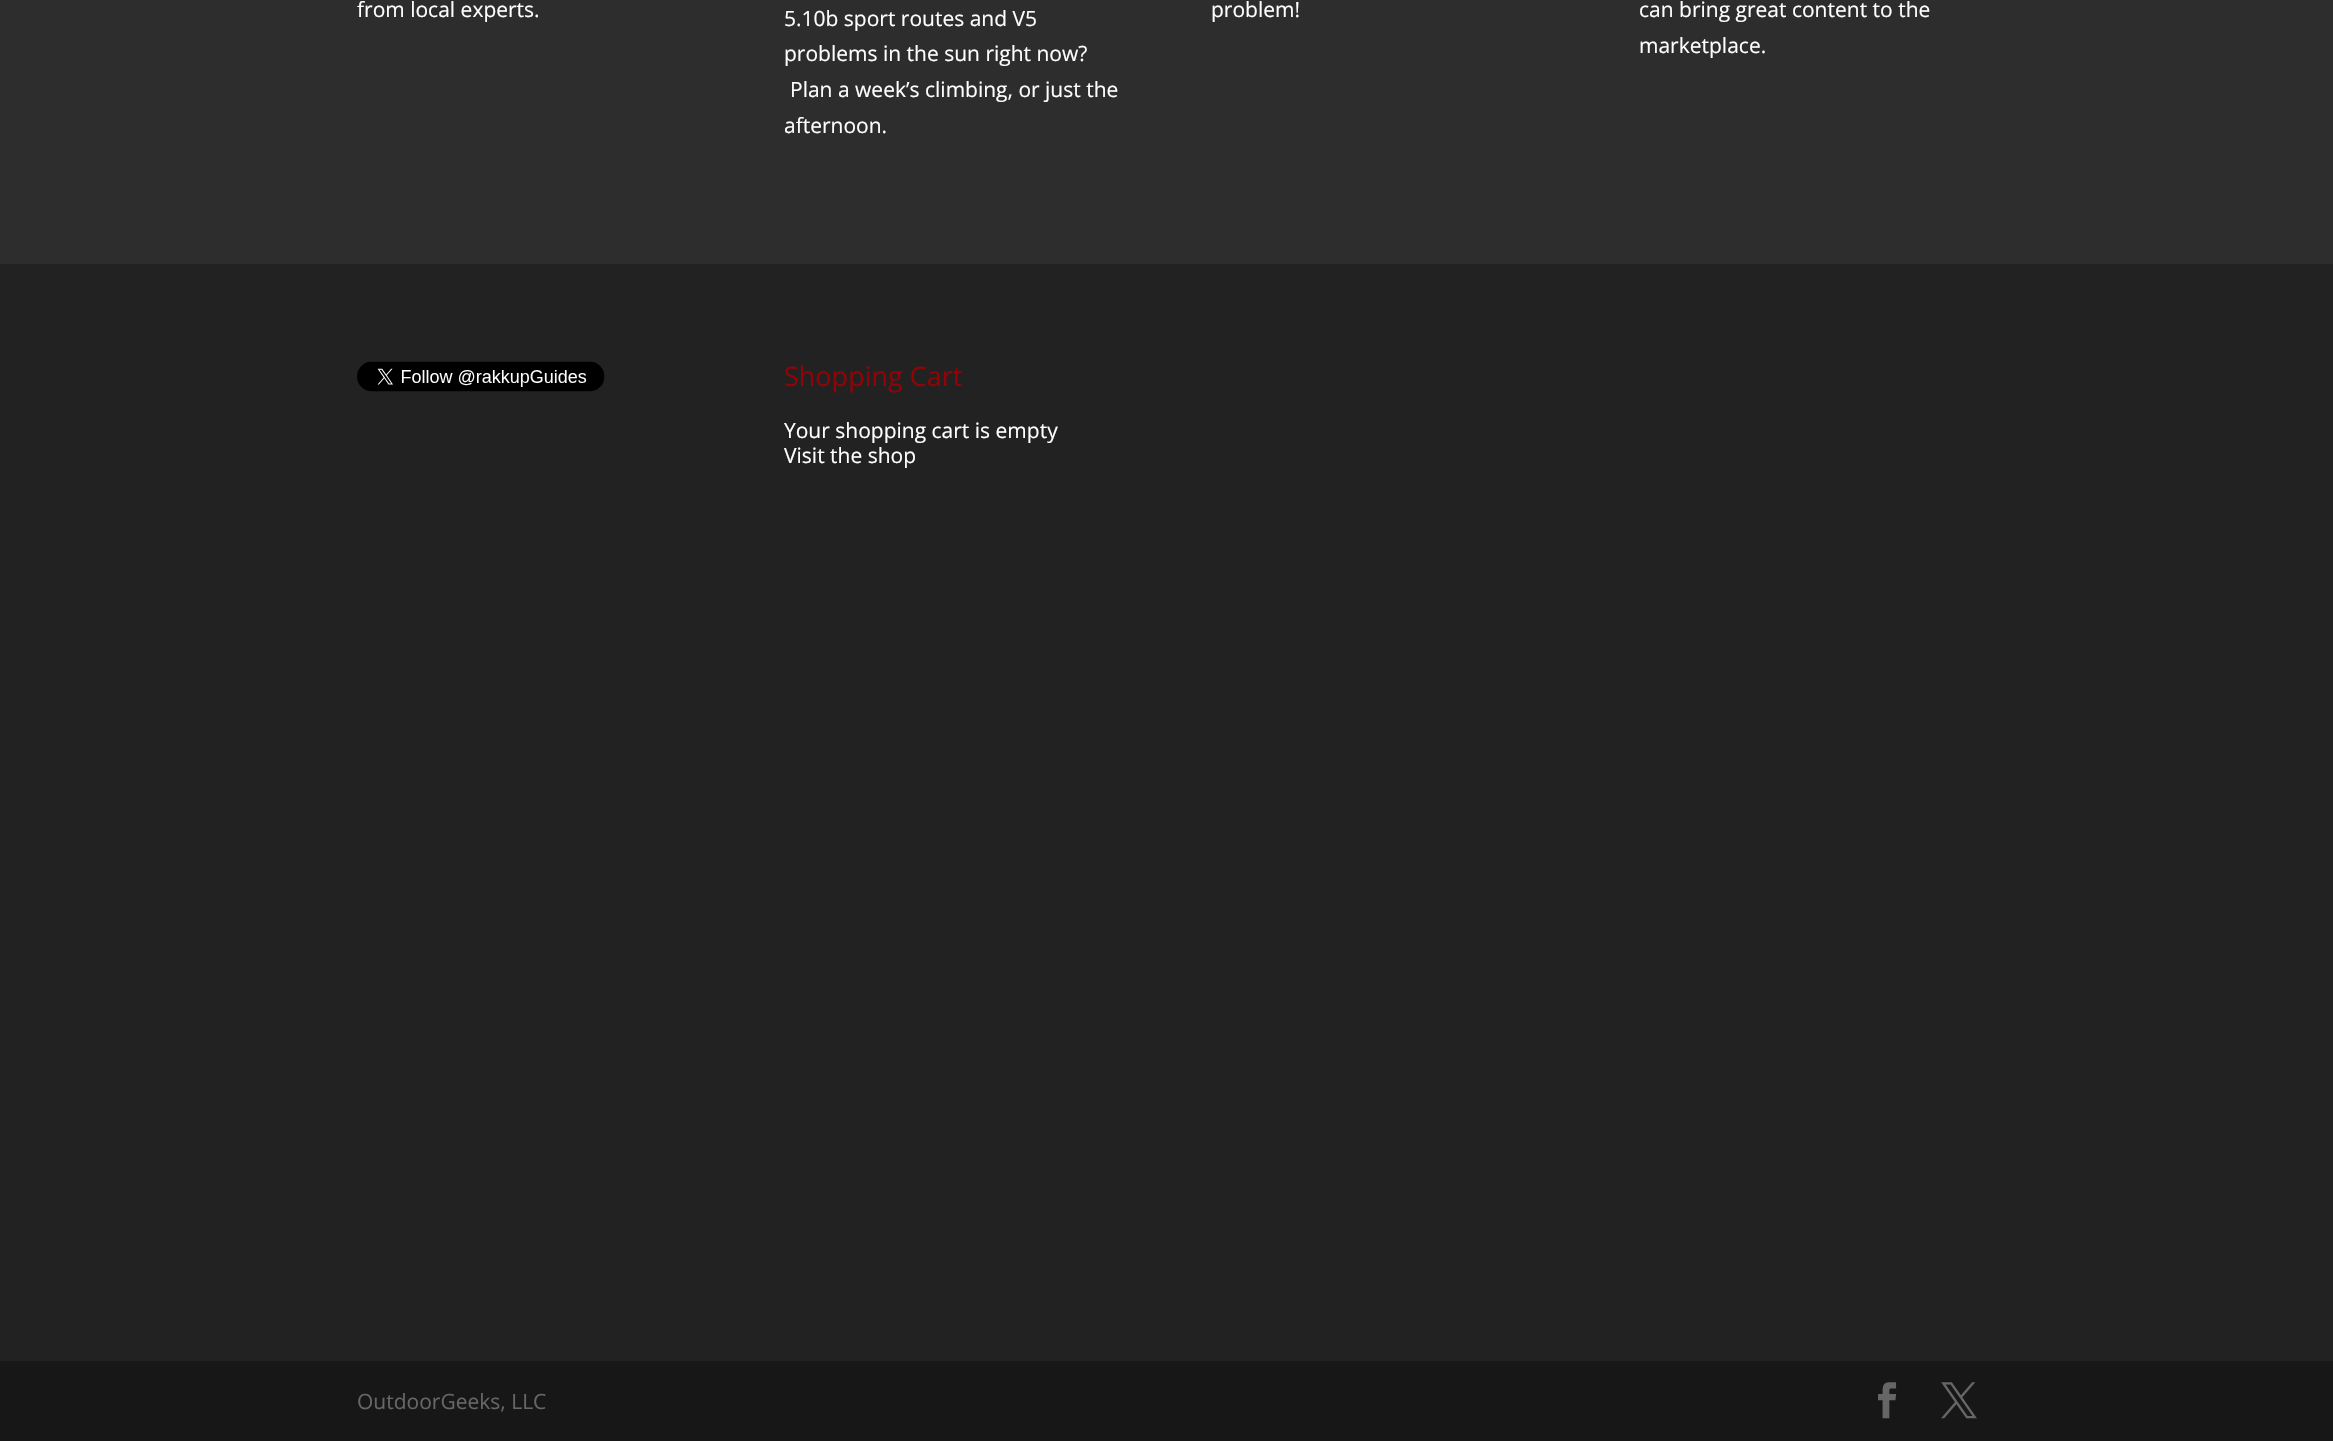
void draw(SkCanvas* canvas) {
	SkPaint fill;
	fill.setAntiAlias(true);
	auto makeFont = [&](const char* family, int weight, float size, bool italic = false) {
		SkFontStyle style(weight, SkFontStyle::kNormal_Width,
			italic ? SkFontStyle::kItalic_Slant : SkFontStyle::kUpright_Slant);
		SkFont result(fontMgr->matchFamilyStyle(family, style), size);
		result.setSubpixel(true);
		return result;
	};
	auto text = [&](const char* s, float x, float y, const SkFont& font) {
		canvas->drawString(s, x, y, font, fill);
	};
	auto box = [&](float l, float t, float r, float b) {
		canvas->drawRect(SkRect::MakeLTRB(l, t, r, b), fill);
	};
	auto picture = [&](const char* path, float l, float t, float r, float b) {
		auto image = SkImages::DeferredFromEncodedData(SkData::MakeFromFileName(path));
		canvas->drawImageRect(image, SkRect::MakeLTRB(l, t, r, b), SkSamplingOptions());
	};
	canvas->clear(0xFF222222);
	fill.setColor(0xFF2D2D2D);
	box(0, 0, 2333, 264);
	picture("image0.png", 357, 361, 605, 392);
	fill.setColor(0xFF171717);
	box(0, 1361, 2333, 1441);
	picture("image1.png", 1878, 1382, 1897, 1419);
	picture("image2.png", 1941, 1382, 1977, 1419);
	auto font1 = makeFont("Open Sans", 400, 21);
	fill.setColor(0xFFFFFFFF);
	text("from local experts.", 357, 17, font1);
	text("5.10b sport routes and V5", 784, 26, font1);
	text("problems in the sun right now?", 784, 61, font1);
	text("Plan a week’s climbing, or just the", 790, 97, font1);
	text("afternoon.", 784, 133, font1);
	text("problem!", 1211, 17, font1);
	text("can bring great content to the", 1639, 17, font1);
	text("marketplace.", 1639, 53, font1);
	auto font2 = makeFont("Open Sans", 400, 27);
	fill.setColor(0xFF940205);
	text("Shopping Cart", 784, 386, font2);
	fill.setColor(0xFFFFFFFF);
	text("Your shopping cart is empty", 784, 438, font1);
	text("Visit the shop", 784, 463, font1);
	fill.setColor(0xFF666666);
	text("OutdoorGeeks, LLC", 357, 1409, font1);
}
